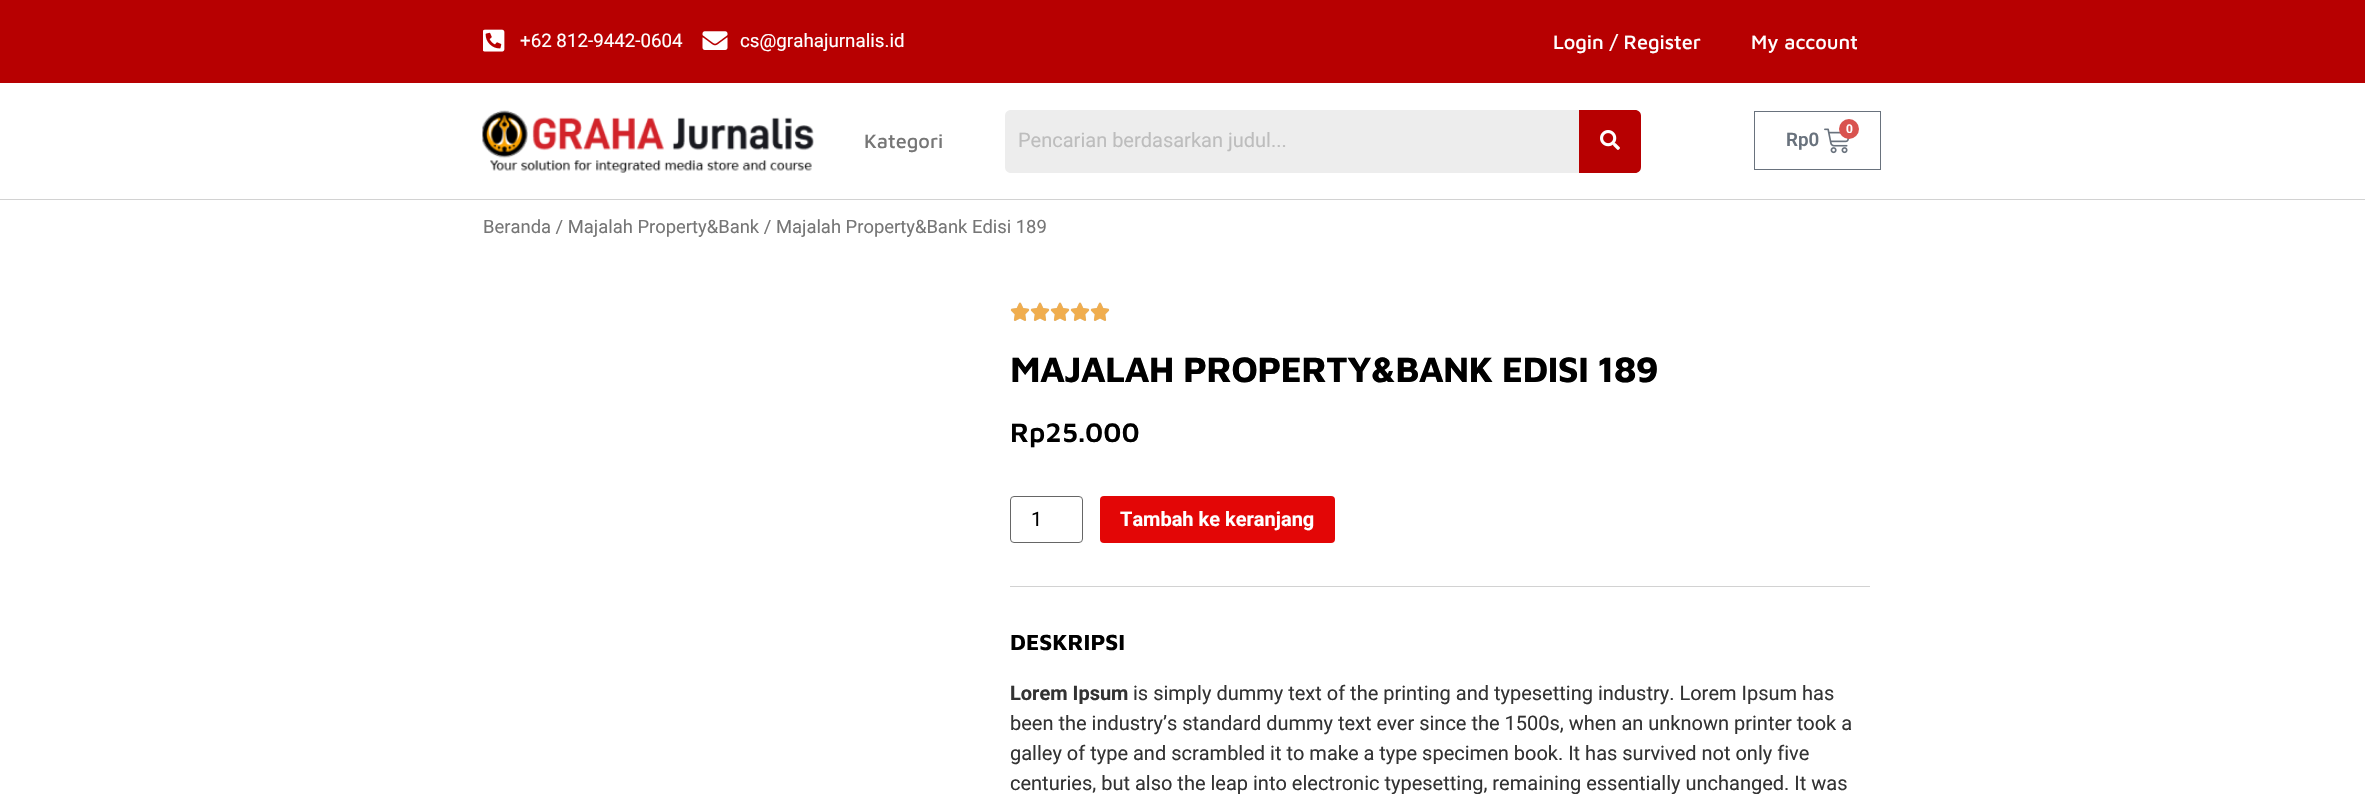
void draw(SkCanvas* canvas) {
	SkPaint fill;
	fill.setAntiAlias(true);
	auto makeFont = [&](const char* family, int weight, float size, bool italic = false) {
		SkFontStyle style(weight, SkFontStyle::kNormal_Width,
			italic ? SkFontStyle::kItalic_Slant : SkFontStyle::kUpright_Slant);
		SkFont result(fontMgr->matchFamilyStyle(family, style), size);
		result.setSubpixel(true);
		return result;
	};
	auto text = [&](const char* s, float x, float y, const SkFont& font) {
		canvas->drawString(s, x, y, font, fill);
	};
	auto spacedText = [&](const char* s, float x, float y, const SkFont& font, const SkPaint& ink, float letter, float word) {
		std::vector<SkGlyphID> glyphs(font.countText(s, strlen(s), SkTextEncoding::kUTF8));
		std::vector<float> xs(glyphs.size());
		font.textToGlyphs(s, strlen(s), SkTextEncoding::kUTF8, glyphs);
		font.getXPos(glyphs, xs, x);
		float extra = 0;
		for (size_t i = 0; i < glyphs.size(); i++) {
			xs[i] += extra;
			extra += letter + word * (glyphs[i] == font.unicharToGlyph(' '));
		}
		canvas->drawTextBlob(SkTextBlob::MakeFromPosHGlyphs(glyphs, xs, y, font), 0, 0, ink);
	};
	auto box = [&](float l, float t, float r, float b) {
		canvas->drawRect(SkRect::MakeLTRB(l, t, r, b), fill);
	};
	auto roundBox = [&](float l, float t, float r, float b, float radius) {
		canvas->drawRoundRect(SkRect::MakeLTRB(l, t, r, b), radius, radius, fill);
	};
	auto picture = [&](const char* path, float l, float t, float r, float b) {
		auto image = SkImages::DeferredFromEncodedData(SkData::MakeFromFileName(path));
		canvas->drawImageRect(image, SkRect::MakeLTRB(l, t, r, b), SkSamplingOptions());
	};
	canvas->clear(0xFFFFFFFF);
	fill.setColor(0xFFB70001);
	box(0, 0, 2365, 83);
	picture("image0.png", 483, 29, 505, 52);
	picture("image1.png", 702, 31, 728, 50);
	fill.setColor(0xFFD2D2D2);
	box(0, 199, 2365, 200);
	picture("image2.png", 482, 110, 814, 173);
	fill.setColor(0xFFEDEDED);
	canvas->drawPath(SkPathBuilder().moveTo(1011, 110).lineTo(1579, 110).lineTo(1579, 173).lineTo(1011, 173).cubicTo(1007.5f, 173, 1005, 170.5f, 1005, 167).lineTo(1005, 116).cubicTo(1005, 112.5f, 1007.5f, 110, 1011, 110).close().detach(), fill);
	fill.setColor(0xFFB70001);
	canvas->drawPath(SkPathBuilder().moveTo(1579, 110).lineTo(1635, 110).cubicTo(1638.5f, 110, 1641, 112.5f, 1641, 116).lineTo(1641, 167).cubicTo(1641, 170.5f, 1638.5f, 173, 1635, 173).lineTo(1579, 173).close().detach(), fill);
	picture("image3.png", 1600, 130, 1620, 150);
	fill.setStyle(SkPaint::kStroke_Style);
	fill.setStrokeWidth(1);
	fill.setColor(0xFF69727D);
	canvas->drawRect(SkRect::MakeLTRB(1754.5f, 111.5f, 1880.5f, 169.5f), fill);
	picture("image4.png", 1824, 128, 1849, 154);
	fill.setStyle(SkPaint::kFill_Style);
	fill.setColor(0xFFD9534F);
	canvas->drawCircle(1849, 129, 10, fill);
	picture("image6.png", 1011, 302, 1029, 321);
	picture("image5.png", 1010, 302, 1030, 321);
	picture("image6.png", 1031, 302, 1049, 321);
	picture("image5.png", 1030, 302, 1050, 321);
	picture("image6.png", 1051, 302, 1069, 321);
	picture("image5.png", 1050, 302, 1070, 321);
	picture("image6.png", 1071, 302, 1089, 321);
	picture("image5.png", 1070, 302, 1090, 321);
	picture("image6.png", 1091, 302, 1109, 321);
	picture("image5.png", 1090, 302, 1110, 321);
	fill.setStyle(SkPaint::kStroke_Style);
	fill.setColor(0xFF666666);
	canvas->drawRoundRect(SkRect::MakeLTRB(1010.5f, 496.5f, 1082.5f, 542.5f), 3.5f, 3.5f, fill);
	fill.setStyle(SkPaint::kFill_Style);
	fill.setColor(0xFFE30606);
	roundBox(1100, 496, 1335, 543, 4);
	fill.setColor(0xFFD2D2D2);
	box(1010, 586, 1870, 587);
	auto font1 = makeFont("Roboto", 400, 18.75f);
	fill.setColor(0xFFFFFFFF);
	text("+62 812-9442-0604", 520, 47, font1);
	text("cs@grahajurnalis.id", 740, 47, font1);
	auto font2 = makeFont("Maven Pro", 500, 20);
	text("Login / Register", 1553, 49, font2);
	text("My account", 1751, 49, font2);
	fill.setColor(0xFF767676);
	text("Kategori", 864, 148, font2);
	auto font3 = makeFont("Roboto", 400, 20);
	fill.setColor(0xFFBDBDBD);
	text("Pencarian berdasarkan judul...", 1018, 147, font3);
	auto font4 = makeFont("Roboto", 600, 12);
	fill.setColor(0xFFFFFFFF);
	text("0", 1846, 133, font4);
	auto font5 = makeFont("Roboto", 600, 18.75f);
	fill.setColor(0xFF69727D);
	text("Rp0", 1786, 146, font5);
	auto font6 = makeFont("Roboto", 400, 18.4f);
	fill.setColor(0xFF767676);
	text("Beranda / Majalah Property&Bank / Majalah Property&Bank Edisi 189", 483, 233, font6);
	auto font7 = makeFont("Maven Pro", 700, 36.25f);
	fill.setColor(0xFF000000);
	spacedText("MAJALAH PROPERTY&BANK EDISI 189", 1010, 382, font7, fill, -0.75f, 0);
	auto font8 = makeFont("Maven Pro", 600, 27.5f);
	text("Rp25.000", 1010, 442, font8);
	text("1", 1031, 526, font3);
	auto font9 = makeFont("Roboto", 700, 20);
	fill.setColor(0xFFFFFFFF);
	text("Tambah ke keranjang", 1120, 526, font9);
	auto font10 = makeFont("Maven Pro", 700, 22.5f);
	fill.setColor(0xFF000000);
	text("DESKRIPSI", 1010, 650, font10);
	fill.setColor(0xFF333333);
	text("Lorem Ipsum", 1010, 700, font9);
	text("is simply dummy text of the printing and typesetting industry. Lorem Ipsum has", 1133, 700, font3);
	text("been the industry’s standard dummy text ever since the 1500s, when an unknown printer took a", 1010, 730, font3);
	text("galley of type and scrambled it to make a type specimen book. It has survived not only five", 1010, 760, font3);
	text("centuries, but also the leap into electronic typesetting, remaining essentially unchanged. It was", 1010, 790, font3);
}
